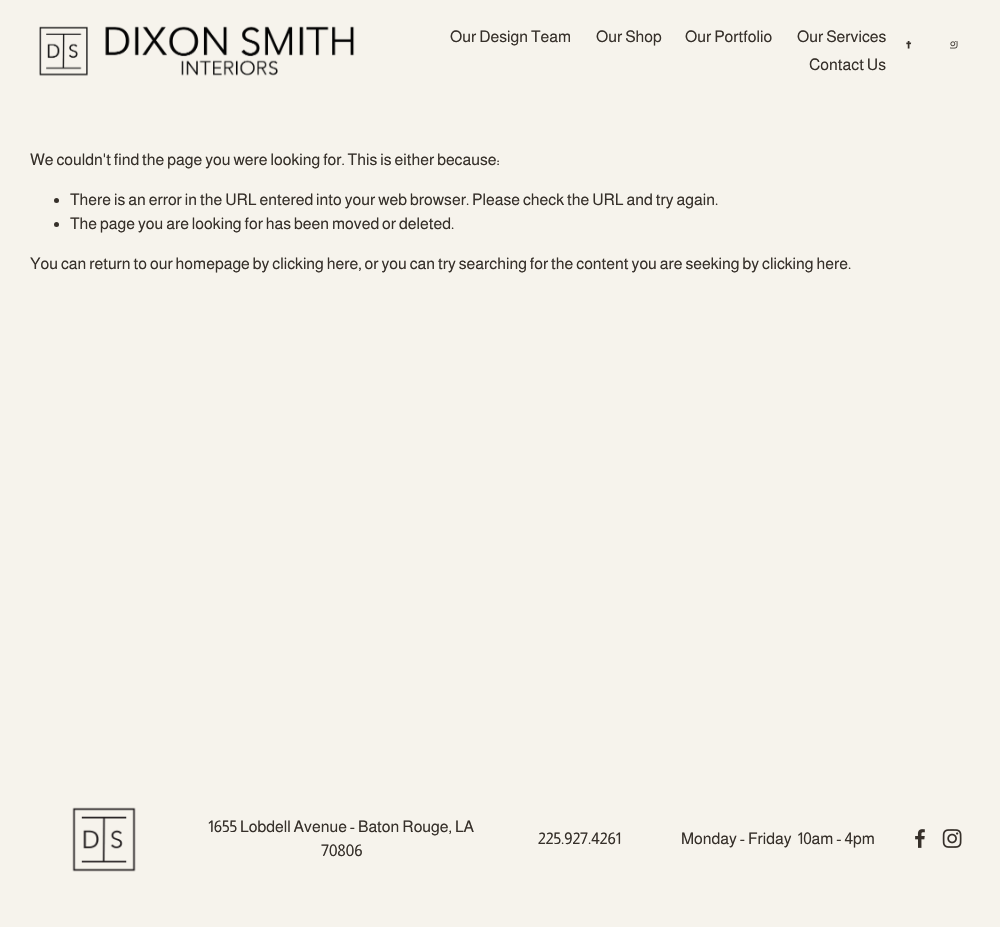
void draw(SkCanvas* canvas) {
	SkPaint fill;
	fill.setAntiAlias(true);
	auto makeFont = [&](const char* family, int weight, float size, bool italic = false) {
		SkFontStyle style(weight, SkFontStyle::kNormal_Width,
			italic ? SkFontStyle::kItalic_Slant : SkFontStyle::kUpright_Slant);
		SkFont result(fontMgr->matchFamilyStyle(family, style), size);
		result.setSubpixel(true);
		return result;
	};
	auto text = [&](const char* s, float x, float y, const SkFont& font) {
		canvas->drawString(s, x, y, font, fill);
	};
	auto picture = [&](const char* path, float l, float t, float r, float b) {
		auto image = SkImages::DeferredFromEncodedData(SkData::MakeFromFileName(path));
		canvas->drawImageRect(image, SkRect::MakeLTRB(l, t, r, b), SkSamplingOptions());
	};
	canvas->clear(0xFFF6F3EC);
	picture("image0.png", 39, 26, 355, 76);
	picture("image1.png", 906, 41, 912, 49);
	picture("image2.png", 950, 41, 958, 49);
	fill.setColor(0xFF36302A);
	canvas->drawCircle(56.5f, 200.5f, 2.5f, fill);
	canvas->drawCircle(56.5f, 224.5f, 2.5f, fill);
	picture("image3.png", 72, 807, 136, 872);
	picture("image4.png", 915, 829, 925, 848);
	picture("image5.png", 942, 829, 962, 848);
	auto font1 = makeFont("Almarai", 400, 16);
	text("Our Design Team", 450, 42, font1);
	text("Our Shop", 596, 42, font1);
	text("Our Portfolio", 685, 42, font1);
	text("Our Services", 797, 42, font1);
	text("Contact Us", 809, 70, font1);
	text("We couldn't find the page you were looking for. This is either because:", 30, 165, font1);
	text("There is an error in the URL entered into your web browser. Please check the URL and try again.", 70, 205, font1);
	text("The page you are looking for has been moved or deleted.", 70, 229, font1);
	text("You can return to our homepage by clicking here, or you can try searching for the content you are seeking by clicking here.", 30, 269, font1);
	text("1655 Lobdell Avenue - Baton Rouge, LA", 208, 832, font1);
	text("70806", 321, 856, font1);
	text("225.927.4261", 538, 844, font1);
	text("Monday - Friday  10am - 4pm", 681, 844, font1);
}
